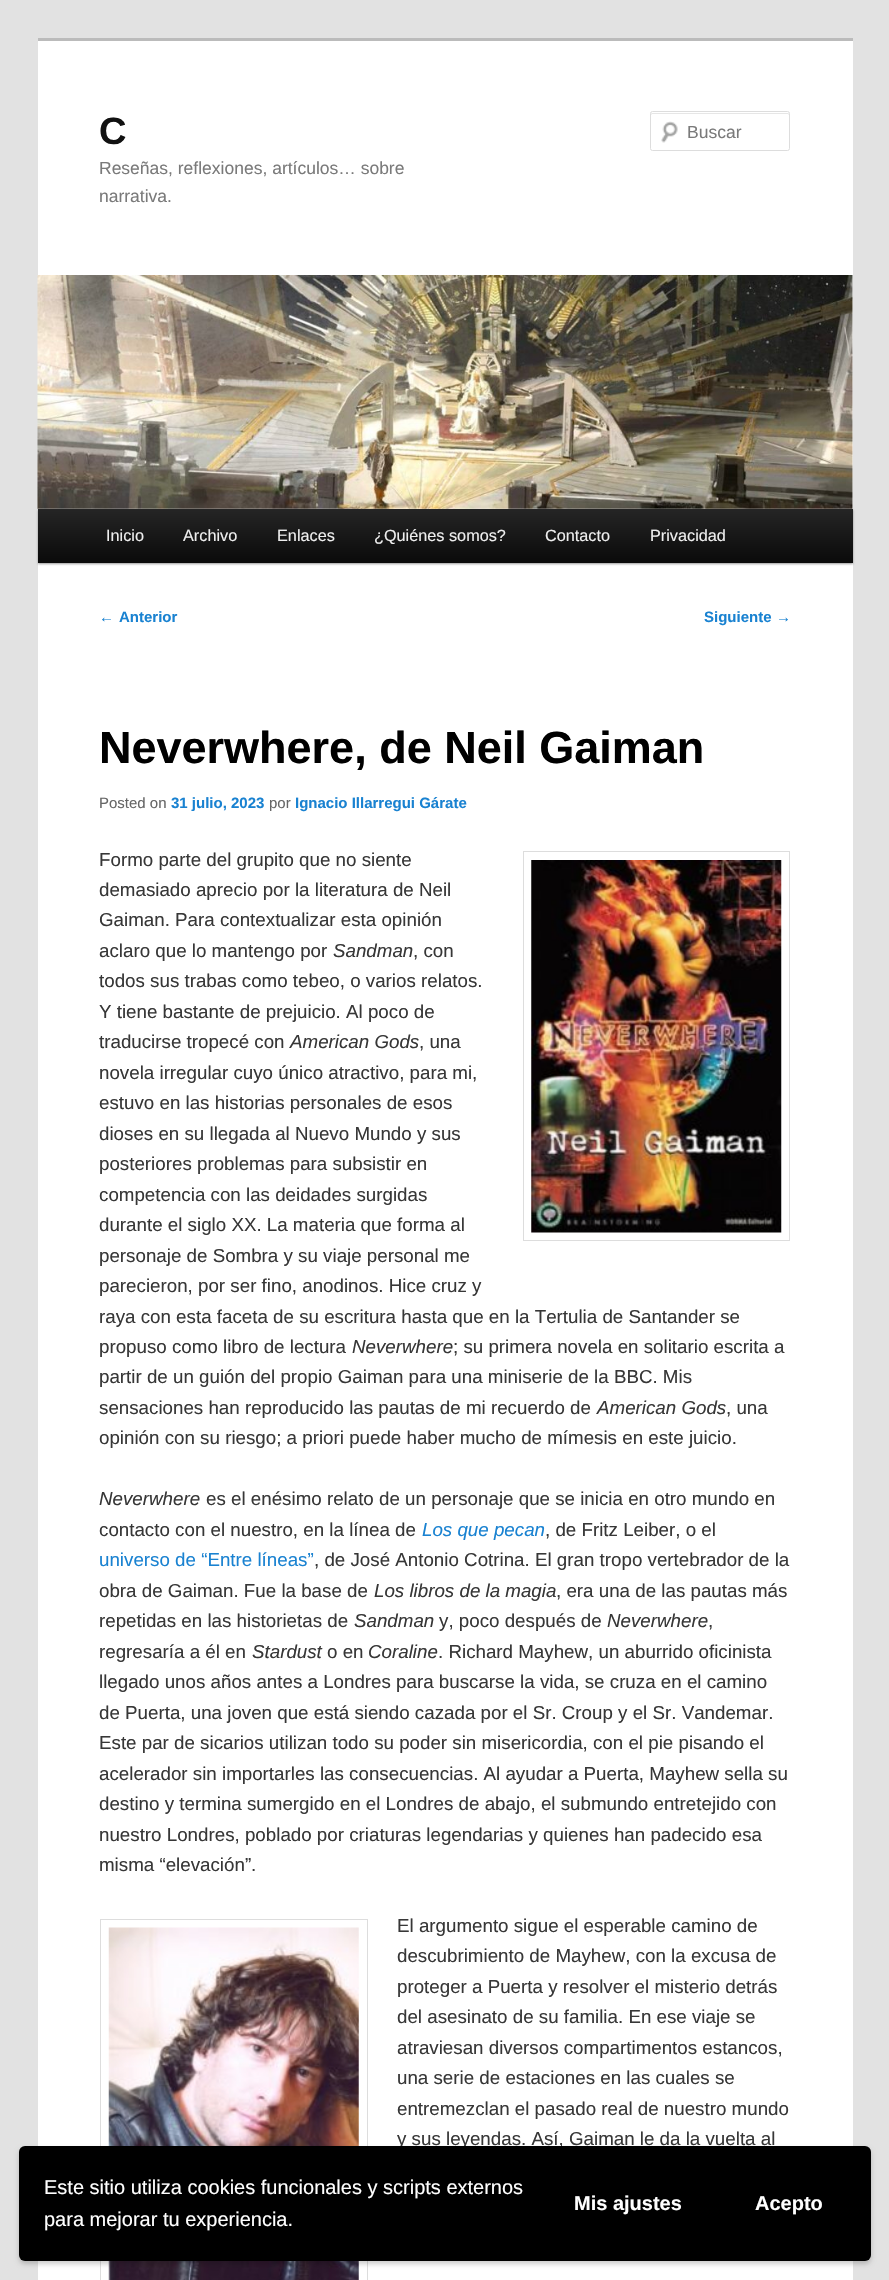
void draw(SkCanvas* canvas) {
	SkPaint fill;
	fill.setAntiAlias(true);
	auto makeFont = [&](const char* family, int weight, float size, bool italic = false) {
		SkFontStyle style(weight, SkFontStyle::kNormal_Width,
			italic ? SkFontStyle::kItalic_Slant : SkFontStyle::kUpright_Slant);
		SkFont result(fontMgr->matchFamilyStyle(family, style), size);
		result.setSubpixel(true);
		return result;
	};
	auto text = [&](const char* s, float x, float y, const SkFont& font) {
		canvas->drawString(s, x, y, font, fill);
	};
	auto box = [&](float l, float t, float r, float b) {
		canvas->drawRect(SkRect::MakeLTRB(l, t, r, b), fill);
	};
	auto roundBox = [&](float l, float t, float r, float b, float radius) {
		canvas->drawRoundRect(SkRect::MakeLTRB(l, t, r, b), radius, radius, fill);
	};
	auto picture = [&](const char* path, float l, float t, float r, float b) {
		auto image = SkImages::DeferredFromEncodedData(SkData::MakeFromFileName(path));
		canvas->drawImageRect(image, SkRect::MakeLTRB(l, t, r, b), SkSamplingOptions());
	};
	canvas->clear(0xFFE2E2E2);
	fill.setColor(0xFFFFFFFF);
	box(38, 41, 853, 2280);
	fill.setColor(0xFFBBBBBB);
	box(38, 38, 853, 41);
	picture("image0.png", 661, 121, 678, 143);
	fill.setColor(0xFFE6E6E6);
	canvas->drawPath(SkPathBuilder().moveTo(652, 114).lineTo(788, 114).lineTo(789, 115).cubicTo(789, 114, 789, 113, 788, 113).lineTo(652, 113).cubicTo(651, 113, 651, 114, 651, 115).close().detach(), fill);
	fill.setStyle(SkPaint::kStroke_Style);
	fill.setStrokeWidth(1);
	fill.setColor(0xFFDDDDDD);
	canvas->drawRoundRect(SkRect::MakeLTRB(650.5f, 111.5f, 789.5f, 150.5f), 2, 2, fill);
	fill.setStyle(SkPaint::kFill_Style);
	fill.setColor(0x66000000);
	fill.setMaskFilter(SkMaskFilter::MakeBlur(kNormal_SkBlurStyle, 1));
	canvas->drawRect(SkRect::MakeLTRB(38, 510, 853, 564), fill);
	fill.setMaskFilter(nullptr);
	picture("image1.png", 37, 275, 853, 509);
	{
		const SkColor colors[] = {0xFF252525, 0xFF0A0A0A};
		const float stops[] = {0, 1};
		const SkPoint ends[] = {{445, 509}, {445, 563}};
		fill.setShader(SkGradientShader::MakeLinear(ends, colors, stops, 2, SkTileMode::kClamp));
		fill.setAlpha(255);
	}
	box(38, 509, 853, 563);
	fill.setStyle(SkPaint::kStroke_Style);
	fill.setShader(nullptr);
	fill.setColor(0xFFDDDDDD);
	canvas->drawRect(SkRect::MakeLTRB(523.5f, 851.5f, 789.5f, 1240.5f), fill);
	picture("image2.png", 531, 860, 782, 1233);
	canvas->drawRect(SkRect::MakeLTRB(100.5f, 1919.5f, 367.5f, 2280.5f), fill);
	picture("image3.png", 108, 1927, 359, 2280);
	fill.setStyle(SkPaint::kFill_Style);
	fill.setColor(0x33000000);
	fill.setMaskFilter(SkMaskFilter::MakeBlur(kNormal_SkBlurStyle, 2.5f));
	canvas->drawRoundRect(SkRect::MakeLTRB(19, 2149, 871, 2264), 6, 6, fill);
	fill.setMaskFilter(nullptr);
	auto font1 = makeFont("Liberation Sans", 700, 38);
	fill.setColor(0xFF111111);
	text("C", 99, 144, font1);
	auto font2 = makeFont("Liberation Sans", 400, 17.5f);
	fill.setColor(0xFF7A7A7A);
	text("Reseñas, reflexiones, artículos… sobre", 99, 174, font2);
	text("narrativa.", 99, 202, font2);
	text("Buscar", 687, 138, font2);
	auto font3 = makeFont("Liberation Sans", 400, 16.25f);
	fill.setColor(0xFFEEEEEE);
	text("Inicio", 106, 541, font3);
	text("Archivo", 183, 541, font3);
	text("Enlaces", 277, 541, font3);
	text("¿Quiénes somos?", 374, 541, font3);
	text("Contacto", 545, 541, font3);
	text("Privacidad", 650, 541, font3);
	auto font4 = makeFont("Liberation Sans", 400, 15);
	fill.setColor(0xFF1982D1);
	text("←", 99, 622, font4);
	auto font5 = makeFont("Liberation Sans", 700, 15);
	text("Anterior", 119, 622, font5);
	text("Siguiente", 704, 622, font5);
	text("→", 776, 622, font4);
	auto font6 = makeFont("Liberation Sans", 700, 45);
	fill.setColor(0xFF000000);
	text("Neverwhere, de Neil Gaiman", 99, 763, font6);
	fill.setColor(0xFF666666);
	text("Posted on", 99, 808, font4);
	fill.setColor(0xFF1982D1);
	text("31 julio, 2023", 171, 808, font5);
	fill.setColor(0xFF666666);
	text("por", 269, 808, font4);
	fill.setColor(0xFF1982D1);
	text("Ignacio Illarregui Gárate", 295, 808, font5);
	auto font7 = makeFont("Liberation Sans", 400, 18.75f);
	fill.setColor(0xFF373737);
	text("Formo parte del grupito que no siente", 99, 866, font7);
	text("demasiado aprecio por la literatura de Neil", 99, 896, font7);
	text("Gaiman. Para contextualizar esta opinión", 99, 926, font7);
	text("aclaro que lo mantengo por", 99, 957, font7);
	auto font8 = makeFont("Liberation Sans", 400, 18.75f, true);
	text("Sandman", 333, 957, font8);
	text(", con", 413, 957, font7);
	text("todos sus trabas como tebeo, o varios relatos.", 99, 987, font7);
	text("Y tiene bastante de prejuicio. Al poco de", 99, 1018, font7);
	text("traducirse tropecé con", 99, 1048, font7);
	text("American Gods", 290, 1048, font8);
	text(", una", 419, 1048, font7);
	text("novela irregular cuyo único atractivo, para mi,", 99, 1079, font7);
	text("estuvo en las historias personales de esos", 99, 1109, font7);
	text("dioses en su llegada al Nuevo Mundo y sus", 99, 1140, font7);
	text("posteriores problemas para subsistir en", 99, 1170, font7);
	text("competencia con las deidades surgidas", 99, 1201, font7);
	text("durante el siglo XX. La materia que forma al", 99, 1231, font7);
	text("personaje de Sombra y su viaje personal me", 99, 1262, font7);
	text("parecieron, por ser fino, anodinos. Hice cruz y", 99, 1292, font7);
	text("raya con esta faceta de su escritura hasta que en la Tertulia de Santander se", 99, 1323, font7);
	text("propuso como libro de lectura", 99, 1353, font7);
	text("Neverwhere", 352, 1353, font8);
	text("; su primera novela en solitario escrita a", 453, 1353, font7);
	text("partir de un guión del propio Gaiman para una miniserie de la BBC. Mis", 99, 1383, font7);
	text("sensaciones han reproducido las pautas de mi recuerdo de", 99, 1414, font7);
	text("American Gods", 597, 1414, font8);
	text(", una", 726, 1414, font7);
	text("opinión con su riesgo; a priori puede haber mucho de mímesis en este juicio.", 99, 1444, font7);
	text("Neverwhere", 99, 1505, font8);
	text("es el enésimo relato de un personaje que se inicia en otro mundo en", 206, 1505, font7);
	text("contacto con el nuestro, en la línea de", 99, 1536, font7);
	fill.setColor(0xFF1982D1);
	text("Los que pecan", 422, 1536, font8);
	fill.setColor(0xFF373737);
	text(", de Fritz Leiber, o el", 545, 1536, font7);
	fill.setColor(0xFF1982D1);
	text("universo de “Entre líneas”", 99, 1566, font7);
	fill.setColor(0xFF373737);
	text(", de José Antonio Cotrina. El gran tropo vertebrador de la", 314, 1566, font7);
	text("obra de Gaiman. Fue la base de", 99, 1597, font7);
	text("Los libros de la magia", 374, 1597, font8);
	text(", era una de las pautas más", 556, 1597, font7);
	text("repetidas en las historietas de", 99, 1627, font7);
	text("Sandman", 354, 1627, font8);
	text("y, poco después de", 439, 1627, font7);
	text("Neverwhere", 607, 1627, font8);
	text(",", 708, 1627, font7);
	text("regresaría a él en", 99, 1658, font7);
	text("Stardust", 252, 1658, font8);
	text("o en", 327, 1658, font7);
	text("Coraline", 368, 1658, font8);
	text(". Richard Mayhew, un aburrido oficinista", 438, 1658, font7);
	text("llegado unos años antes a Londres para buscarse la vida, se cruza en el camino", 99, 1688, font7);
	text("de Puerta, una joven que está siendo cazada por el Sr. Croup y el Sr. Vandemar.", 99, 1719, font7);
	text("Este par de sicarios utilizan todo su poder sin misericordia, con el pie pisando el", 99, 1749, font7);
	text("acelerador sin importarles las consecuencias. Al ayudar a Puerta, Mayhew sella su", 99, 1780, font7);
	text("destino y termina sumergido en el Londres de abajo, el submundo entretejido con", 99, 1810, font7);
	text("nuestro Londres, poblado por criaturas legendarias y quienes han padecido esa", 99, 1841, font7);
	text("misma “elevación”.", 99, 1871, font7);
	text("El argumento sigue el esperable camino de", 397, 1932, font7);
	text("descubrimiento de Mayhew, con la excusa de", 397, 1962, font7);
	text("proteger a Puerta y resolver el misterio detrás", 397, 1993, font7);
	text("del asesinato de su familia. En ese viaje se", 397, 2023, font7);
	text("atraviesan diversos compartimentos estancos,", 397, 2054, font7);
	text("una serie de estaciones en las cuales se", 397, 2084, font7);
	text("entremezclan el pasado real de nuestro mundo", 397, 2115, font7);
	text("y sus leyendas. Así, Gaiman le da la vuelta al", 397, 2145, font7);
	fill.setColor(0xFF000000);
	roundBox(19, 2146, 871, 2261, 6);
	auto font9 = makeFont("Liberation Sans", 400, 20);
	fill.setColor(0xFFFFFFFF);
	text("Este sitio utiliza cookies funcionales y scripts externos", 44, 2194, font9);
	text("para mejorar tu experiencia.", 44, 2226, font9);
	auto font10 = makeFont("Liberation Sans", 700, 20);
	text("Mis ajustes", 574, 2210, font10);
	text("Acepto", 755, 2210, font10);
}
